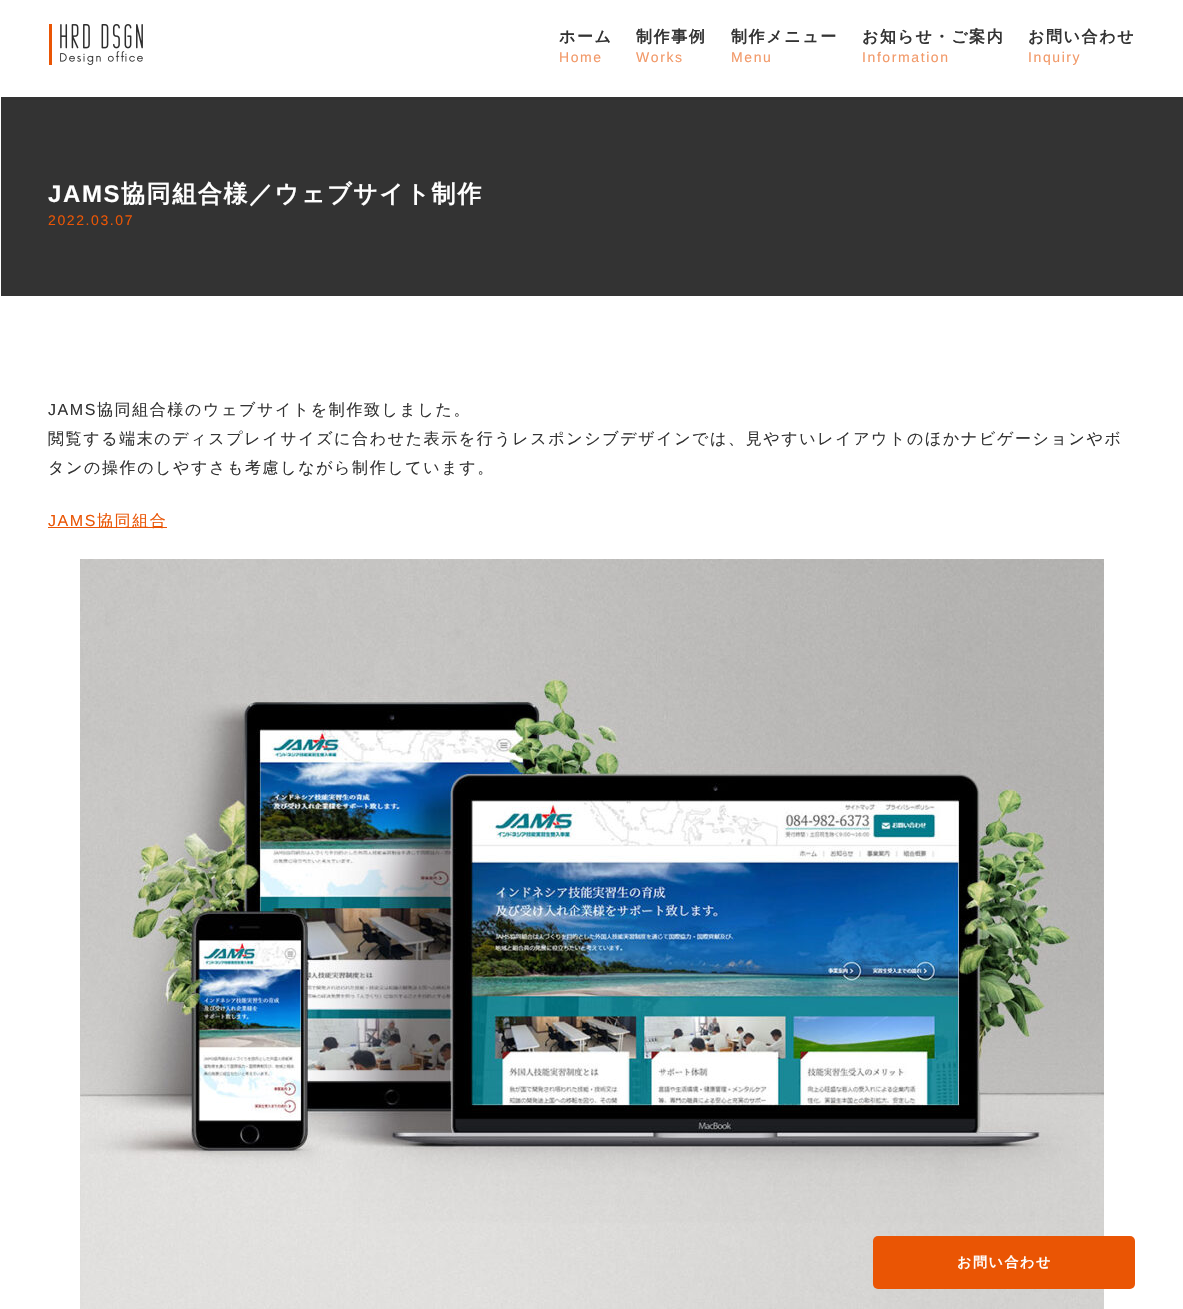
void draw(SkCanvas* canvas) {
	SkPaint fill;
	fill.setAntiAlias(true);
	auto makeFont = [&](const char* family, int weight, float size, bool italic = false) {
		SkFontStyle style(weight, SkFontStyle::kNormal_Width,
			italic ? SkFontStyle::kItalic_Slant : SkFontStyle::kUpright_Slant);
		SkFont result(fontMgr->matchFamilyStyle(family, style), size);
		result.setSubpixel(true);
		return result;
	};
	auto spacedText = [&](const char* s, float x, float y, const SkFont& font, const SkPaint& ink, float letter, float word) {
		std::vector<SkGlyphID> glyphs(font.countText(s, strlen(s), SkTextEncoding::kUTF8));
		std::vector<float> xs(glyphs.size());
		font.textToGlyphs(s, strlen(s), SkTextEncoding::kUTF8, glyphs);
		font.getXPos(glyphs, xs, x);
		float extra = 0;
		for (size_t i = 0; i < glyphs.size(); i++) {
			xs[i] += extra;
			extra += letter + word * (glyphs[i] == font.unicharToGlyph(' '));
		}
		canvas->drawTextBlob(SkTextBlob::MakeFromPosHGlyphs(glyphs, xs, y, font), 0, 0, ink);
	};
	auto box = [&](float l, float t, float r, float b) {
		canvas->drawRect(SkRect::MakeLTRB(l, t, r, b), fill);
	};
	auto roundBox = [&](float l, float t, float r, float b, float radius) {
		canvas->drawRoundRect(SkRect::MakeLTRB(l, t, r, b), radius, radius, fill);
	};
	auto picture = [&](const char* path, float l, float t, float r, float b) {
		auto image = SkImages::DeferredFromEncodedData(SkData::MakeFromFileName(path));
		canvas->drawImageRect(image, SkRect::MakeLTRB(l, t, r, b), SkSamplingOptions());
	};
	canvas->clear(0xFFFFFFFF);
	picture("image0.png", 49, 24, 143, 65);
	fill.setColor(0xFF333333);
	box(1, 97, 1183, 296);
	fill.setColor(0xFFEA5504);
	box(48, 527, 167, 528);
	picture("image1.png", 80, 559, 1104, 1309);
	roundBox(873, 1236, 1135, 1289, 5);
	auto font1 = makeFont("WenQuanYi Zen Hei", 700, 16);
	fill.setColor(0xFF333333);
	spacedText("ホーム", 559, 42, font1, fill, 1.6f, 0);
	auto font2 = makeFont("Liberation Sans", 400, 14);
	fill.setColor(0xFFF29968);
	spacedText("Home", 559, 62, font2, fill, 1.6f, 0);
	fill.setColor(0xFF333333);
	spacedText("制作事例", 636, 42, font1, fill, 1.6f, 0);
	fill.setColor(0xFFF29968);
	spacedText("Works", 636, 62, font2, fill, 1.6f, 0);
	fill.setColor(0xFF333333);
	spacedText("制作メニュー", 731, 42, font1, fill, 1.6f, 0);
	fill.setColor(0xFFF29968);
	spacedText("Menu", 731, 62, font2, fill, 1.6f, 0);
	fill.setColor(0xFF333333);
	spacedText("お知らせ・ご案内", 862, 42, font1, fill, 1.6f, 0);
	fill.setColor(0xFFF29968);
	spacedText("Information", 862, 62, font2, fill, 1.6f, 0);
	fill.setColor(0xFF333333);
	spacedText("お問い合わせ", 1028, 42, font1, fill, 1.6f, 0);
	fill.setColor(0xFFF29968);
	spacedText("Inquiry", 1028, 62, font2, fill, 1.6f, 0);
	auto font3 = makeFont("Liberation Sans", 700, 24);
	fill.setColor(0xFFFFFFFF);
	spacedText("JAMS", 48, 202, font3, fill, 1.6f, 0);
	auto font4 = makeFont("WenQuanYi Zen Hei", 700, 24);
	spacedText("協同組合様／ウェブサイト制作", 121, 202, font4, fill, 1.6f, 0);
	fill.setColor(0xFFEA5504);
	spacedText("2022.03.07", 48, 225, font2, fill, 1.6f, 0);
	auto font5 = makeFont("Liberation Sans", 400, 16);
	fill.setColor(0xFF333333);
	spacedText("JAMS", 48, 415, font5, fill, 1.6f, 0);
	auto font6 = makeFont("WenQuanYi Zen Hei", 500, 16);
	spacedText("協同組合様のウェブサイトを制作致しました。", 97, 415, font6, fill, 1.6f, 0);
	spacedText("閲覧する端末のディスプレイサイズに合わせた表示を行うレスポンシブデザインでは、見やすいレイアウトのほかナビゲーションやボ", 48, 444, font6, fill, 1.6f, 0);
	spacedText("タンの操作のしやすさも考慮しながら制作しています。", 48, 473, font6, fill, 1.6f, 0);
	fill.setColor(0xFFEA5504);
	spacedText("JAMS", 48, 526, font5, fill, 1.6f, 0);
	spacedText("協同組合", 97, 526, font6, fill, 1.6f, 0);
	auto font7 = makeFont("WenQuanYi Zen Hei", 700, 14);
	fill.setColor(0xFFFFFFFF);
	spacedText("お問い合わせ", 957, 1267, font7, fill, 1.6f, 0);
}
